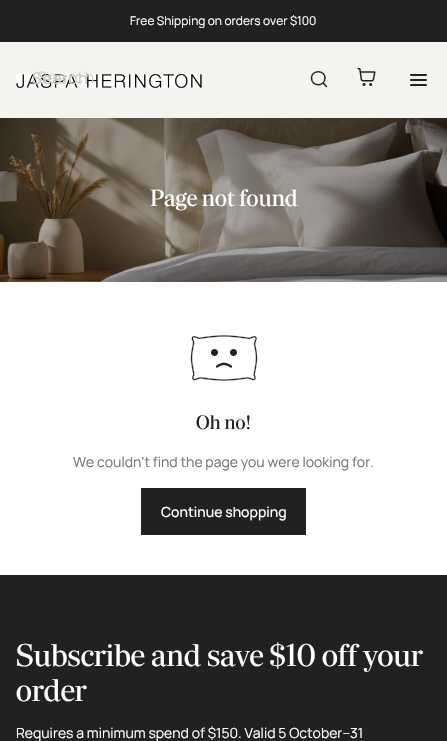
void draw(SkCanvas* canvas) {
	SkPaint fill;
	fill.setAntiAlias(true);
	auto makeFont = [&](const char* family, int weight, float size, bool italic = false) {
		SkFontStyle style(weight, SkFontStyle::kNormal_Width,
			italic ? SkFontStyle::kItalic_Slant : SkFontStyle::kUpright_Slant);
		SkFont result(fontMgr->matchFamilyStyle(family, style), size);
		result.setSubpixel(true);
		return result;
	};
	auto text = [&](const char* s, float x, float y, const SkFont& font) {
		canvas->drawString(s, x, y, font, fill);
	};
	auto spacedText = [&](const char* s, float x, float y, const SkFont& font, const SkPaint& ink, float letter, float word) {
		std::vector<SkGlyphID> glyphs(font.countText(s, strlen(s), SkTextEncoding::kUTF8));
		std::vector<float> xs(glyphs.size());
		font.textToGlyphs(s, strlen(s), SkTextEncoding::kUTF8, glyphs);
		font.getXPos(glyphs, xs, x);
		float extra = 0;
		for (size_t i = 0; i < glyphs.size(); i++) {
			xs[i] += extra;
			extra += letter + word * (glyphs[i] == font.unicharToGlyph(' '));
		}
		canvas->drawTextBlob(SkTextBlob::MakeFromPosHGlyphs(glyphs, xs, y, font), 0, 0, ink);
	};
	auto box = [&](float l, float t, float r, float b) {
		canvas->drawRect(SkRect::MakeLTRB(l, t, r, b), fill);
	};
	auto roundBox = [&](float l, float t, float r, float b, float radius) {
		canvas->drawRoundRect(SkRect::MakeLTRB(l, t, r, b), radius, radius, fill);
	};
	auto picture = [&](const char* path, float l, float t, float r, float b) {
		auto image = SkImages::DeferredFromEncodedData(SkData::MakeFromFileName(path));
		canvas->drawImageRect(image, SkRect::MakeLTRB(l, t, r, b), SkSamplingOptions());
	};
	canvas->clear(0xFFFFFFFF);
	fill.setColor(0xFF212121);
	box(0, 0, 447, 42);
	fill.setColor(0xFFF4F3F0);
	box(0, 42, 447, 118);
	picture("image0.png", 16, 74, 202, 88);
	fill.setStyle(SkPaint::kStroke_Style);
	fill.setStrokeWidth(1.5f);
	fill.setStrokeCap(SkPaint::kRound_Cap);
	fill.setStrokeJoin(SkPaint::kRound_Join);
	fill.setColor(0xFF212121);
	canvas->drawPath(SkPathBuilder().moveTo(326.5f, 86.5f).lineTo(323, 83).moveTo(325, 78).cubicTo(325, 87, 311.5f, 87, 311.5f, 78).cubicTo(311.5f, 69.5f, 325, 69.5f, 325, 78).close().detach(), fill);
	picture("image1.png", 357, 67, 376, 86);
	fill.setStyle(SkPaint::kFill_Style);
	roundBox(410, 74, 427, 76, 1);
	roundBox(410, 79, 427, 81, 1);
	roundBox(410, 84, 427, 86, 1);
	picture("image2.png", 0, 118, 447, 282);
	picture("image3.png", 190, 335, 258, 381);
	box(141, 488, 306, 535);
	box(0, 575, 447, 741);
	auto font1 = makeFont("Manrope", 400, 12);
	fill.setColor(0xFFFFFFFF);
	text("Free Shipping on orders over $100", 130, 25, font1);
	auto font2 = makeFont("Manrope", 500, 16);
	fill.setColor(0xFFCBCBCB);
	spacedText("Search", 32, 84, font2, fill, 0.5f, 0);
	auto font3 = makeFont("Manrope", 400, 16);
	fill.setColor(0xFFD1D1D0);
	spacedText("Search", 37, 83, font3, fill, 1, 0);
	auto font4 = makeFont("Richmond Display", 400, 24);
	fill.setColor(0xFFFFFFFF);
	text("Page not found", 150, 206, font4);
	auto font5 = makeFont("Richmond Display", 400, 20);
	fill.setColor(0xFF212121);
	text("Oh no!", 196, 429, font5);
	auto font6 = makeFont("Manrope", 400, 14);
	fill.setColor(0xFF737373);
	text("We couldn’t find the page you were looking for.", 73, 467, font6);
	auto font7 = makeFont("Manrope", 500, 14);
	fill.setColor(0xFFFFFFFF);
	text("Continue shopping", 161, 517, font7);
	auto font8 = makeFont("Richmond Display", 400, 32);
	text("Subscribe and save $10 off your", 16, 666, font8);
	text("order", 16, 701, font8);
	text("Requires a minimum spend of $150. Valid 5 October–31", 16, 738, font6);
}
